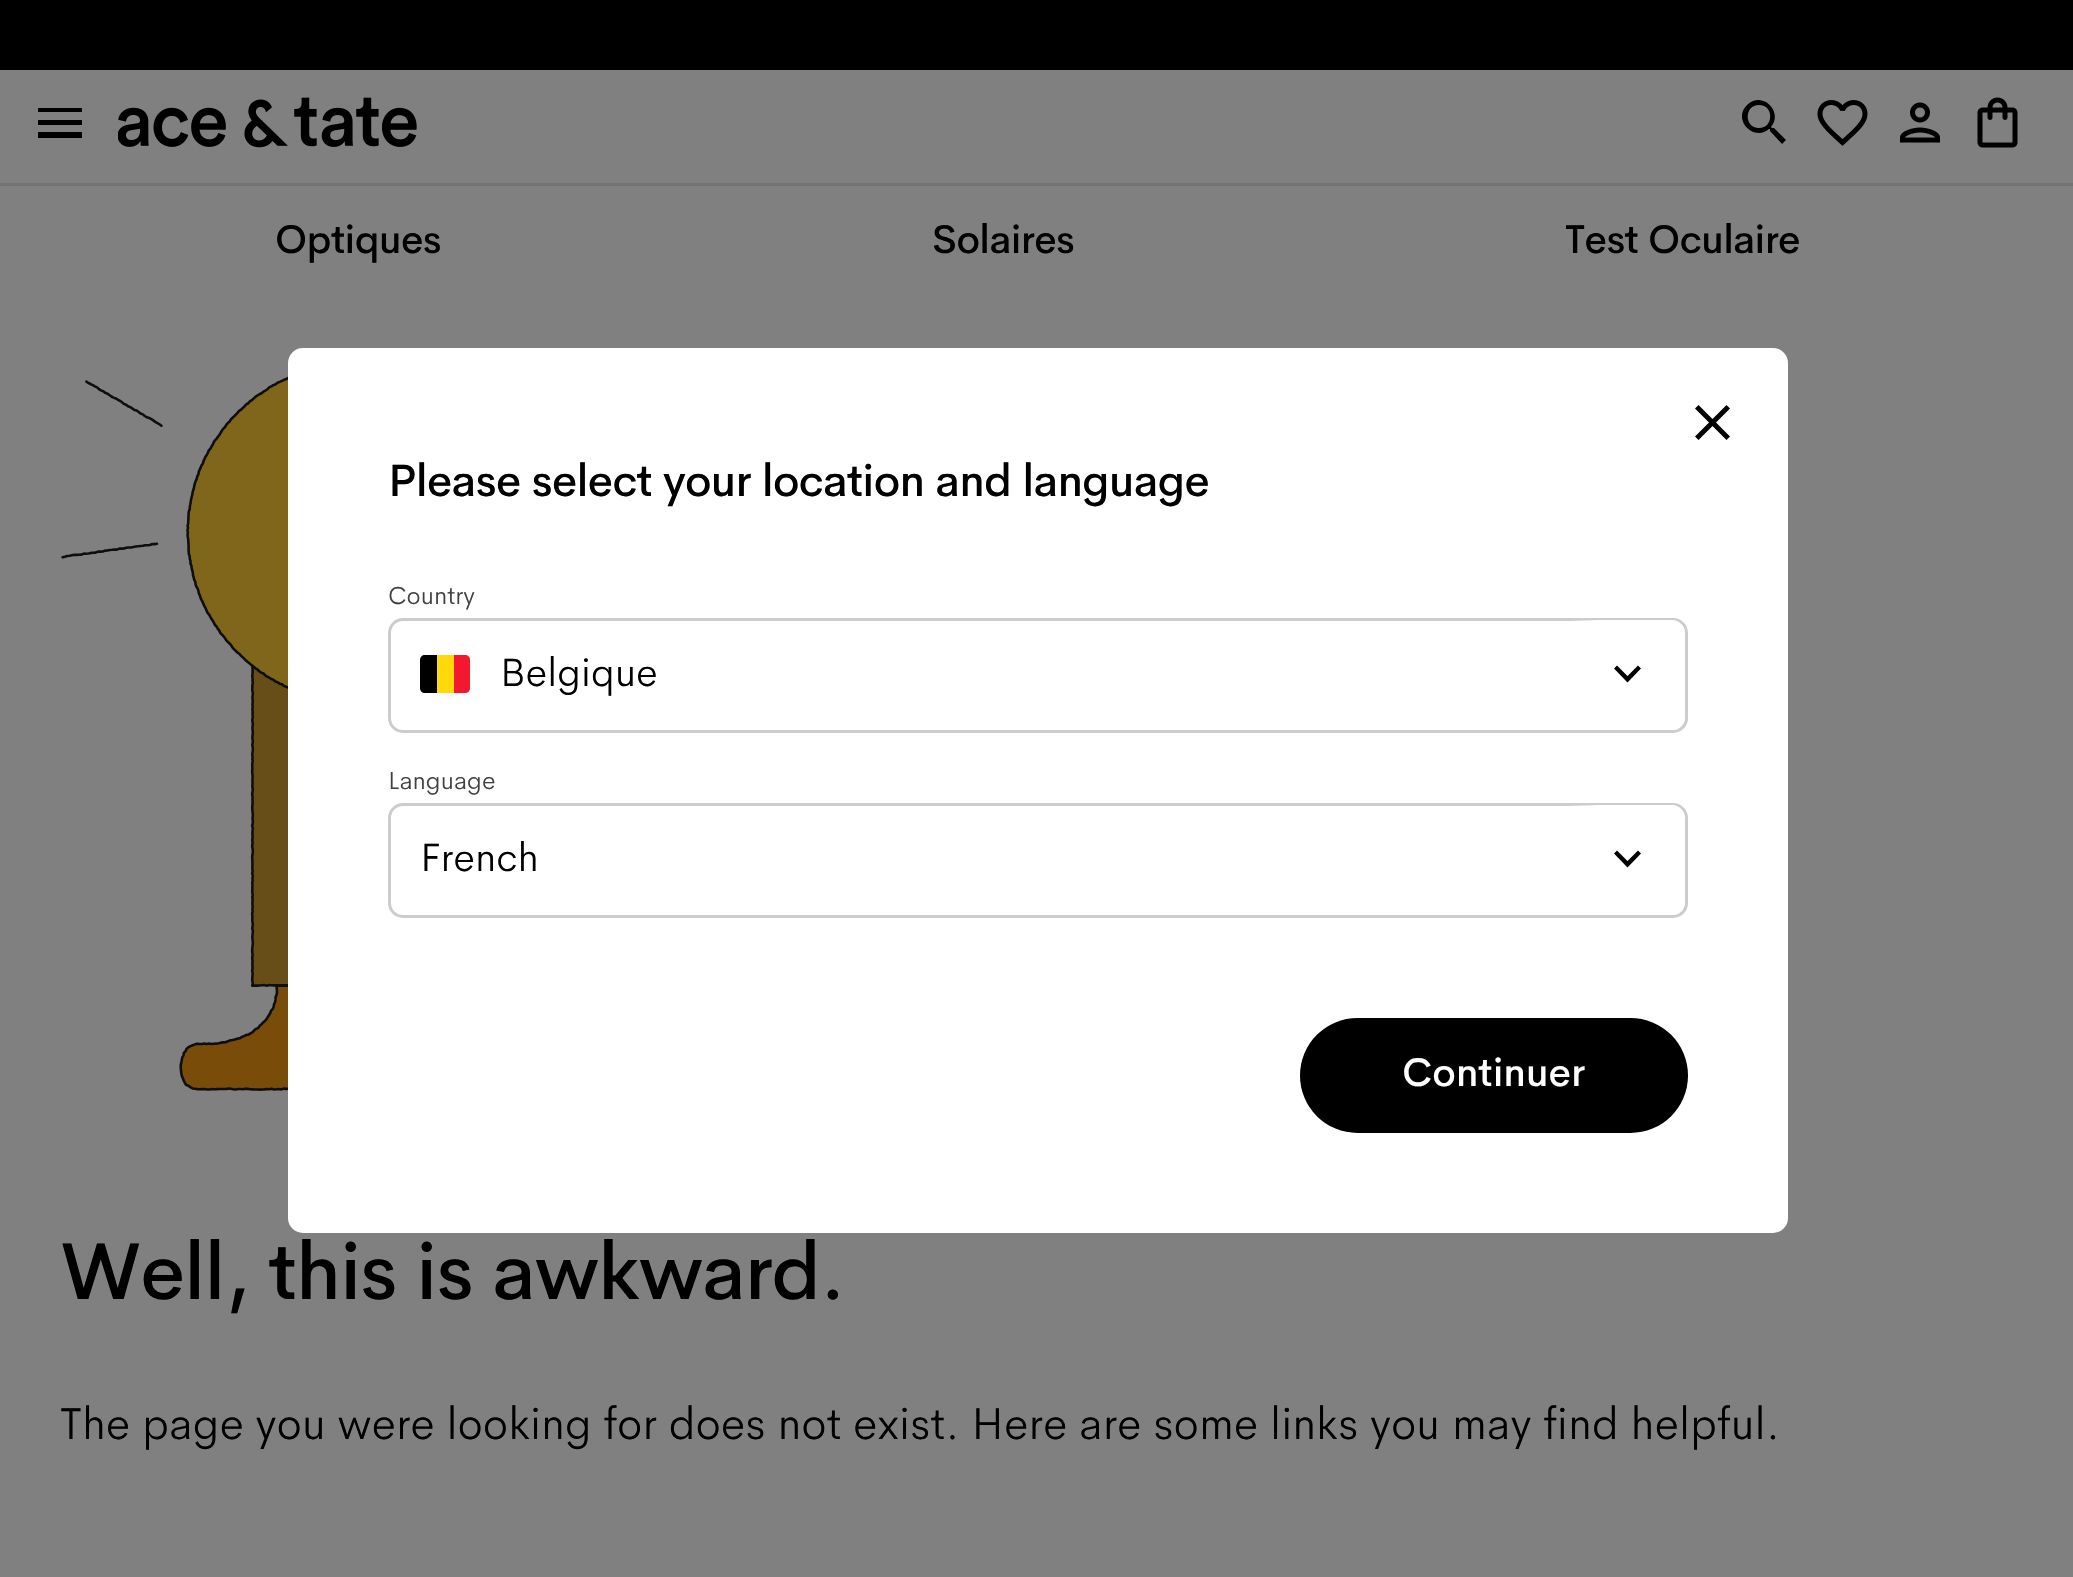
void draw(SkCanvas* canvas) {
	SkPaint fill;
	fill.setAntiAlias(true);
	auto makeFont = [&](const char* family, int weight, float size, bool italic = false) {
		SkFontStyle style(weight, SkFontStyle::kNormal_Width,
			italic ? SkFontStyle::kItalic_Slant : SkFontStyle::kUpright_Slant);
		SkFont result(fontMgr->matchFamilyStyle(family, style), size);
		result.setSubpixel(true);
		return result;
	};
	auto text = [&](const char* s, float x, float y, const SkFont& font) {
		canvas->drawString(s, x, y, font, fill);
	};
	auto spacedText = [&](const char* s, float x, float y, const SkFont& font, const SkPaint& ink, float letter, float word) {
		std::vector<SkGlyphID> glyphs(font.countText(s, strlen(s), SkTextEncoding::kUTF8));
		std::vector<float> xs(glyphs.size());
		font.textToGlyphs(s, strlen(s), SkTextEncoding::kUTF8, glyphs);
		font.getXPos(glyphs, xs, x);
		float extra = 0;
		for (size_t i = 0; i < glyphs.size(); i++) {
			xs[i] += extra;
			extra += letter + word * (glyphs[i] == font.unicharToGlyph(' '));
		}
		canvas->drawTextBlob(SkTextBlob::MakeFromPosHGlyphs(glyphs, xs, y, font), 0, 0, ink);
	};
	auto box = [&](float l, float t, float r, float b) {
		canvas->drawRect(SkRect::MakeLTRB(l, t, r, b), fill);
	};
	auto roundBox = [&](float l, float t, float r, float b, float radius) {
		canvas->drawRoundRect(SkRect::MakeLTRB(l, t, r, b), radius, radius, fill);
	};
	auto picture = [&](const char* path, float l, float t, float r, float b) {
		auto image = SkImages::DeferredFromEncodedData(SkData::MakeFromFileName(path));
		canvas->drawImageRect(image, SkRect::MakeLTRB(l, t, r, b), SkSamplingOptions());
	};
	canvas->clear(0xFF808080);
	fill.setColor(0xFF000000);
	box(0, 0, 2073, 70);
	canvas->drawPath(SkPathBuilder().moveTo(38, 138).lineTo(82, 138).lineTo(82, 132).lineTo(38, 132).close().moveTo(38, 125).lineTo(82, 125).lineTo(82, 120).lineTo(38, 120).close().moveTo(38, 108).lineTo(38, 112).lineTo(82, 112).lineTo(82, 108).close().detach(), fill);
	picture("image0.png", 118, 97, 417, 148);
	canvas->drawPath(SkPathBuilder().moveTo(1774, 128).lineTo(1772, 128).lineTo(1771, 127).cubicTo(1784, 112, 1762, 90, 1747, 105).cubicTo(1732, 120, 1754, 142, 1769, 129).lineTo(1770, 129).lineTo(1770, 131).lineTo(1782, 144).lineTo(1786, 140).close().moveTo(1759, 128).cubicTo(1744, 128, 1744, 105, 1759, 105).cubicTo(1774, 105, 1774, 128, 1759, 128).close().detach(), fill);
	picture("image1.png", 1817, 100, 1868, 146);
	picture("image2.png", 1900, 102, 1940, 143);
	picture("image3.png", 1977, 97, 2018, 148);
	fill.setColor(0xFF737373);
	box(0, 183, 2073, 186);
	picture("image4.png", 61, 376, 288, 1091);
	fill.setColor(0xFFFFFFFF);
	roundBox(288, 348, 1788, 1233, 15);
	fill.setColor(0xFF000000);
	canvas->drawPath(SkPathBuilder().moveTo(1730, 408.5f).lineTo(1726.5f, 405).lineTo(1712.5f, 419).lineTo(1698.5f, 405).lineTo(1695, 408.5f).lineTo(1709, 422.5f).lineTo(1695, 436.5f).lineTo(1698.5f, 440).lineTo(1712.5f, 426).lineTo(1726.5f, 440).lineTo(1730, 436.5f).lineTo(1716, 422.5f).close().detach(), fill);
	fill.setStyle(SkPaint::kStroke_Style);
	fill.setStrokeWidth(3);
	fill.setColor(0xFFCCCCCC);
	canvas->drawRoundRect(SkRect::MakeLTRB(389.5f, 619.5f, 1686.5f, 731.5f), 13.5f, 13.5f, fill);
	fill.setStyle(SkPaint::kFill_Style);
	fill.setColor(0xFF000000);
	canvas->drawPath(SkPathBuilder().moveTo(425, 655).lineTo(437, 655).lineTo(437, 693).lineTo(425, 693).cubicTo(422, 693, 420, 691, 420, 688).lineTo(420, 660).cubicTo(420, 657, 422, 655, 425, 655).close().detach(), fill);
	fill.setColor(0xFFFFD90C);
	box(437, 655, 454, 693);
	fill.setColor(0xFFF31830);
	canvas->drawPath(SkPathBuilder().moveTo(454, 655).lineTo(465, 655).cubicTo(468, 655, 470, 657, 470, 660).lineTo(470, 688).cubicTo(470, 691, 468, 693, 465, 693).lineTo(454, 693).close().detach(), fill);
	{
		const SkColor colors[] = {0x00FFFFFF, 0xFFFFFFFF};
		const float stops[] = {0, 0.26f};
		const SkPoint ends[] = {{1570, 675}, {1685, 675}};
		fill.setShader(SkGradientShader::MakeLinear(ends, colors, stops, 2, SkTileMode::kClamp));
		fill.setAlpha(255);
	}
	canvas->drawPath(SkPathBuilder().moveTo(1570, 620).lineTo(1672, 620).cubicTo(1679, 620, 1685, 626, 1685, 633).lineTo(1685, 717).cubicTo(1685, 724, 1679, 730, 1672, 730).lineTo(1570, 730).close().detach(), fill);
	fill.setShader(nullptr);
	fill.setColor(0xFF000000);
	canvas->drawPath(SkPathBuilder().moveTo(1617, 665.5f).lineTo(1627.5f, 676).lineTo(1638, 665.5f).lineTo(1641, 668.5f).lineTo(1627.5f, 682.5f).lineTo(1614, 668.5f).close().detach(), fill);
	fill.setStyle(SkPaint::kStroke_Style);
	fill.setColor(0xFFCCCCCC);
	canvas->drawRoundRect(SkRect::MakeLTRB(389.5f, 804.5f, 1686.5f, 916.5f), 13.5f, 13.5f, fill);
	fill.setStyle(SkPaint::kFill_Style);
	{
		const SkColor colors[] = {0x00FFFFFF, 0xFFFFFFFF};
		const float stops[] = {0, 0.26f};
		const SkPoint ends[] = {{1570, 860}, {1685, 860}};
		fill.setShader(SkGradientShader::MakeLinear(ends, colors, stops, 2, SkTileMode::kClamp));
		fill.setAlpha(255);
	}
	canvas->drawPath(SkPathBuilder().moveTo(1570, 805).lineTo(1672, 805).cubicTo(1679, 805, 1685, 811, 1685, 818).lineTo(1685, 902).cubicTo(1685, 909, 1679, 915, 1672, 915).lineTo(1570, 915).close().detach(), fill);
	fill.setShader(nullptr);
	fill.setColor(0xFF000000);
	canvas->drawPath(SkPathBuilder().moveTo(1617, 850.5f).lineTo(1627.5f, 861).lineTo(1638, 850.5f).lineTo(1641, 853.5f).lineTo(1627.5f, 867.5f).lineTo(1614, 853.5f).close().detach(), fill);
	roundBox(1300, 1018, 1688, 1133, 57.5f);
	auto font1 = makeFont("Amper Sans", 500, 40);
	spacedText("Optiques", 275, 253, font1, fill, -0.6f, 0);
	spacedText("Solaires", 932, 253, font1, fill, -0.6f, 0);
	spacedText("Test Oculaire", 1565, 253, font1, fill, -0.6f, 0);
	auto font2 = makeFont("Amper Sans", 500, 80);
	spacedText("Well, this is awkward.", 60, 1299, font2, fill, -1.2f, 0);
	auto font3 = makeFont("Amper Sans", 300, 45);
	text("The page you were looking for does not exist. Here are some links you may find helpful.", 60, 1439, font3);
	auto font4 = makeFont("Amper Sans", 500, 45);
	spacedText("Please select your location and language", 388, 496, font4, fill, -0.7f, 0);
	auto font5 = makeFont("Amper Sans", 300, 25);
	fill.setColor(0xFF404040);
	text("Country", 388, 604, font5);
	auto font6 = makeFont("Amper Sans", 300, 40);
	fill.setColor(0xFF000000);
	text("Belgique", 500, 686, font6);
	fill.setColor(0xFF404040);
	text("Language", 388, 789, font5);
	fill.setColor(0xFF000000);
	text("French", 420, 871, font6);
	fill.setColor(0xFFFFFFFF);
	text("Continuer", 1402, 1086, font1);
}
